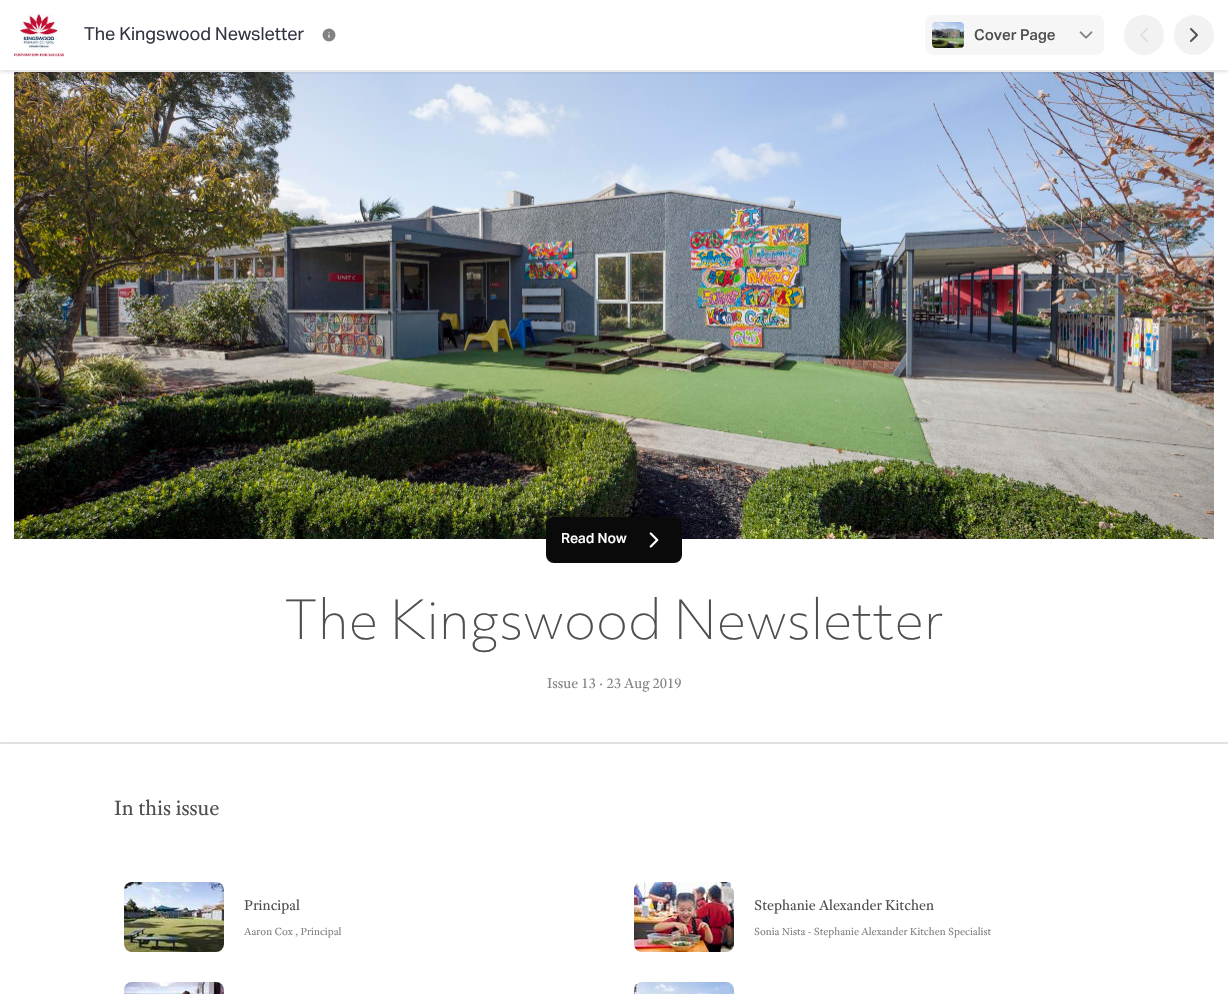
void draw(SkCanvas* canvas) {
	SkPaint fill;
	fill.setAntiAlias(true);
	auto makeFont = [&](const char* family, int weight, float size, bool italic = false) {
		SkFontStyle style(weight, SkFontStyle::kNormal_Width,
			italic ? SkFontStyle::kItalic_Slant : SkFontStyle::kUpright_Slant);
		SkFont result(fontMgr->matchFamilyStyle(family, style), size);
		result.setSubpixel(true);
		return result;
	};
	auto text = [&](const char* s, float x, float y, const SkFont& font) {
		canvas->drawString(s, x, y, font, fill);
	};
	auto roundBox = [&](float l, float t, float r, float b, float radius) {
		canvas->drawRoundRect(SkRect::MakeLTRB(l, t, r, b), radius, radius, fill);
	};
	auto picture = [&](const char* path, float l, float t, float r, float b) {
		auto image = SkImages::DeferredFromEncodedData(SkData::MakeFromFileName(path));
		canvas->drawImageRect(image, SkRect::MakeLTRB(l, t, r, b), SkSamplingOptions());
	};
	canvas->clear(0xFFFFFFFF);
	picture("image6.png", 14, 72, 1214, 539);
	canvas->save();
	canvas->clipRect(SkRect::MakeLTRB(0, 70, 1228, 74));
	fill.setColor(0x1F000000);
	fill.setMaskFilter(SkMaskFilter::MakeBlur(kNormal_SkBlurStyle, 2));
	canvas->drawRect(SkRect::MakeLTRB(0, 2, 1228, 72), fill);
	fill.setMaskFilter(nullptr);
	canvas->restore();
	picture("image0.png", 14, 14, 64, 57);
	picture("image1.png", 322, 28, 336, 42);
	fill.setColor(0xFFF6F6F7);
	roundBox(925, 15, 1104, 55, 8);
	picture("image2.png", 932, 22, 964, 48);
	picture("image3.png", 1079, 31, 1093, 39);
	fill.setColor(0xFFF2F2F2);
	canvas->drawCircle(1144, 35, 20, fill);
	picture("image4.png", 1140, 28, 1148, 42);
	canvas->drawCircle(1194, 35, 20, fill);
	picture("image5.png", 1190, 28, 1198, 42);
	fill.setColor(0xFF0A0A0A);
	roundBox(546, 517, 682, 563, 8);
	picture("image7.png", 649, 532, 659, 548);
	fill.setColor(0xFFE0E0E0);
	roundBox(0, 742, 1228, 744, 1);
	picture("image8.png", 124, 882, 224, 952);
	picture("image9.png", 634, 882, 734, 952);
	picture("image10.png", 124, 982, 224, 994);
	picture("image11.png", 634, 982, 734, 994);
	auto font1 = makeFont("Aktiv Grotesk", 400, 18);
	fill.setColor(0xFF333542);
	text("The Kingswood Newsletter", 84, 40, font1);
	auto font2 = makeFont("Aktiv Grotesk", 500, 15);
	fill.setColor(0xFF4F4F4F);
	text("Cover Page", 974, 40, font2);
	auto font3 = makeFont("Aktiv Grotesk", 500, 14);
	fill.setColor(0xFFFFFFFF);
	text("Read Now", 561, 543, font3);
	auto font4 = makeFont("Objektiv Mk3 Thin", 100, 52);
	fill.setColor(0xFF4F4F4F);
	text("The Kingswood Newsletter", 284, 639, font4);
	auto font5 = makeFont("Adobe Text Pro", 400, 15);
	fill.setColor(0xFF828282);
	text("Issue 13 · 23 Aug 2019", 547, 688, font5);
	auto font6 = makeFont("Adobe Text Pro", 400, 22);
	fill.setColor(0xFF4F4F4F);
	text("In this issue", 114, 815, font6);
	text("Principal", 244, 910, font5);
	auto font7 = makeFont("Adobe Text Pro", 400, 11);
	fill.setColor(0xFF828282);
	text("Aaron Cox , Principal", 244, 935, font7);
	fill.setColor(0xFF4F4F4F);
	text("Stephanie Alexander Kitchen", 754, 910, font5);
	fill.setColor(0xFF828282);
	text("Sonia Nista - Stephanie Alexander Kitchen Specialist", 754, 935, font7);
}
